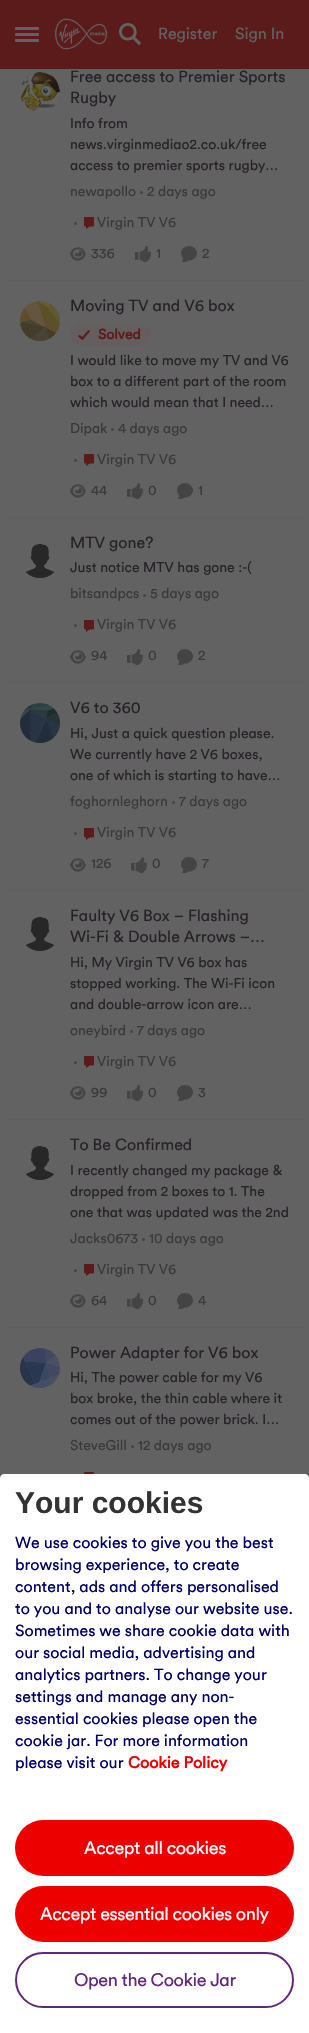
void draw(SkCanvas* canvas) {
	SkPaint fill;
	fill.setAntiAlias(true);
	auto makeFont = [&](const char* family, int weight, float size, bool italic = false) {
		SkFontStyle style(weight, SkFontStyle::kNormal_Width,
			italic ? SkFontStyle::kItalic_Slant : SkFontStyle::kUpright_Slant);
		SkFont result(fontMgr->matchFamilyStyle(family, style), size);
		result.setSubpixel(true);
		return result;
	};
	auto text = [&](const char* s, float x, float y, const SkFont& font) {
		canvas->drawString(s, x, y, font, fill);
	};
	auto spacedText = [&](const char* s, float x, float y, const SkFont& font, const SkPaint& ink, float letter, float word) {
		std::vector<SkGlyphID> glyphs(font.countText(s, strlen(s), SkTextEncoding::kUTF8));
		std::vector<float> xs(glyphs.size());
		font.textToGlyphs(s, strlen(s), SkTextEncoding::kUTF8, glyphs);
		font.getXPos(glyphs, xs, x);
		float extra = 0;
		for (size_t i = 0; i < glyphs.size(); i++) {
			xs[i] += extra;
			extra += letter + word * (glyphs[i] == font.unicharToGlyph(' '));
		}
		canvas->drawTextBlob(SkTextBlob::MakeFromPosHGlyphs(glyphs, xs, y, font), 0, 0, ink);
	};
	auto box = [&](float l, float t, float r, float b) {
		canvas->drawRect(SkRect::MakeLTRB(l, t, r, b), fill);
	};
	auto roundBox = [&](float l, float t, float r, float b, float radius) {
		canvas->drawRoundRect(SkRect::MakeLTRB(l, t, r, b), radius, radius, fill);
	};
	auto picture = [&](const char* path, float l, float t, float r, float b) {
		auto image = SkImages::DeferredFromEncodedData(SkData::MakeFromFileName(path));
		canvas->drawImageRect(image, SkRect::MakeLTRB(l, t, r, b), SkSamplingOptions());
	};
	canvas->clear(0xFF626262);
	fill.setColor(0xFF5B1B1B);
	box(0, 0, 309, 68);
	fill.setColor(0xFF561A1A);
	box(0, 68, 309, 69);
	fill.setColor(0xFF626262);
	roundBox(15, 27, 39, 30, 1);
	roundBox(15, 33, 39, 36, 1);
	roundBox(15, 39, 39, 42, 1);
	picture("image0.png", 54, 18, 108, 50);
	picture("image1.png", 119, 23, 141, 46);
	fill.setColor(0xFF5E5E5E);
	box(5, 280, 304, 281);
	fill.setColor(0xFF595959);
	canvas->drawCircle(40, 92, 20, fill);
	picture("image2.png", 20, 72, 60, 112);
	fill.setColor(0xFF444444);
	canvas->drawCircle(141.5f, 192.5f, 1.5f, fill);
	canvas->drawCircle(75.5f, 223.5f, 1.5f, fill);
	picture("image3.png", 84, 217, 94, 229);
	picture("image4.png", 70, 247, 86, 261);
	picture("image5.png", 135, 246, 151, 262);
	picture("image6.png", 181, 246, 197, 262);
	fill.setColor(0xFF5E5E5E);
	box(5, 517, 304, 518);
	fill.setColor(0xFF595959);
	canvas->drawCircle(40, 321, 20, fill);
	picture("image7.png", 20, 301, 60, 341);
	fill.setColor(0xFF645E5E);
	roundBox(70, 324, 151, 346, 11);
	picture("image8.png", 78, 330, 90, 340);
	fill.setColor(0xFF444444);
	canvas->drawCircle(112.5f, 429.5f, 1.5f, fill);
	canvas->drawCircle(75.5f, 460.5f, 1.5f, fill);
	picture("image3.png", 84, 454, 94, 466);
	picture("image4.png", 70, 484, 86, 498);
	picture("image5.png", 127, 483, 143, 499);
	picture("image6.png", 177, 483, 193, 499);
	fill.setColor(0xFF5E5E5E);
	box(5, 682, 304, 683);
	fill.setColor(0xFF595959);
	canvas->drawCircle(40, 558, 20, fill);
	picture("image9.png", 20, 538, 60, 578);
	fill.setColor(0xFF444444);
	canvas->drawCircle(144.5f, 595.5f, 1.5f, fill);
	canvas->drawCircle(75.5f, 625.5f, 1.5f, fill);
	picture("image3.png", 84, 620, 94, 632);
	picture("image4.png", 70, 650, 86, 664);
	picture("image5.png", 127, 649, 143, 665);
	picture("image6.png", 177, 649, 193, 665);
	fill.setColor(0xFF5E5E5E);
	box(5, 890, 304, 891);
	fill.setColor(0xFF595959);
	canvas->drawCircle(40, 723, 20, fill);
	picture("image10.png", 20, 703, 60, 743);
	fill.setColor(0xFF444444);
	canvas->drawCircle(173.5f, 802.5f, 1.5f, fill);
	canvas->drawCircle(75.5f, 833.5f, 1.5f, fill);
	picture("image3.png", 84, 828, 94, 840);
	picture("image4.png", 70, 858, 86, 872);
	picture("image5.png", 131, 857, 147, 873);
	picture("image6.png", 181, 857, 197, 873);
	fill.setColor(0xFF5E5E5E);
	box(5, 1119, 304, 1120);
	fill.setColor(0xFF595959);
	canvas->drawCircle(40, 931, 20, fill);
	picture("image9.png", 20, 911, 60, 951);
	fill.setColor(0xFF444444);
	canvas->drawCircle(131.5f, 1031.5f, 1.5f, fill);
	canvas->drawCircle(75.5f, 1062.5f, 1.5f, fill);
	picture("image3.png", 84, 1056, 94, 1068);
	picture("image4.png", 70, 1086, 86, 1100);
	picture("image5.png", 127, 1085, 143, 1101);
	picture("image6.png", 177, 1085, 193, 1101);
	fill.setColor(0xFF5E5E5E);
	box(5, 1327, 304, 1328);
	fill.setColor(0xFF595959);
	canvas->drawCircle(40, 1160, 20, fill);
	picture("image9.png", 20, 1140, 60, 1180);
	fill.setColor(0xFF444444);
	canvas->drawCircle(143.5f, 1239.5f, 1.5f, fill);
	canvas->drawCircle(75.5f, 1270.5f, 1.5f, fill);
	picture("image3.png", 84, 1264, 94, 1276);
	picture("image4.png", 70, 1294, 86, 1308);
	picture("image5.png", 127, 1293, 143, 1309);
	picture("image6.png", 177, 1293, 193, 1309);
	fill.setColor(0xFF595959);
	canvas->drawCircle(40, 1368, 20, fill);
	picture("image11.png", 20, 1348, 60, 1388);
	fill.setColor(0xFF444444);
	canvas->drawCircle(132.5f, 1446.5f, 1.5f, fill);
	picture("image12.png", 84, 1472, 94, 1474);
	fill.setColor(0xFFFFFFFF);
	canvas->drawPath(SkPathBuilder().moveTo(4, 1474).lineTo(305, 1474).cubicTo(307, 1474, 309, 1476, 309, 1478).lineTo(309, 2033).lineTo(0, 2033).lineTo(0, 1478).cubicTo(0, 1476, 2, 1474, 4, 1474).close().detach(), fill);
	fill.setColor(0xFFED0000);
	roundBox(15, 1820, 294, 1876, 28);
	roundBox(15, 1886, 294, 1942, 28);
	fill.setStyle(SkPaint::kStroke_Style);
	fill.setStrokeWidth(2);
	fill.setColor(0xFF5F2878);
	canvas->drawRoundRect(SkRect::MakeLTRB(16, 1953, 293, 2007), 27, 27, fill);
	auto font1 = makeFont("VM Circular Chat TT", 400, 16);
	fill.setStyle(SkPaint::kFill_Style);
	fill.setColor(0xFF626262);
	text("Register", 158, 39, font1);
	text("Sign In", 235, 39, font1);
	fill.setColor(0xFF272227);
	text("Free access to Premier Sports", 70, 82, font1);
	text("Rugby", 70, 103, font1);
	auto font2 = makeFont("VM Circular Chat TT", 400, 14);
	text("Info from", 70, 128, font2);
	text("news.virginmediao2.co.uk/free", 70, 149, font2);
	text("access to premier sports rugby…", 70, 170, font2);
	fill.setColor(0xFF393939);
	text("newapollo", 70, 196, font2);
	text("2 days ago", 147, 196, font2);
	text("Virgin TV V6", 97, 227, font2);
	text("336", 91, 258, font2);
	text("1", 156, 258, font2);
	text("2", 202, 258, font2);
	fill.setColor(0xFF272227);
	text("Moving TV and V6 box", 70, 311, font1);
	auto font3 = makeFont("VM Circular Chat TT", 700, 14);
	fill.setColor(0xFF5B1B1B);
	text("Solved", 98, 339, font3);
	fill.setColor(0xFF272227);
	text("I would like to move my TV and V6", 70, 365, font2);
	text("box to a different part of the room", 70, 386, font2);
	text("which would mean that I need…", 70, 407, font2);
	fill.setColor(0xFF393939);
	text("Dipak", 70, 433, font2);
	text("4 days ago", 118, 433, font2);
	text("Virgin TV V6", 97, 464, font2);
	text("44", 91, 495, font2);
	text("0", 148, 495, font2);
	text("1", 198, 495, font2);
	fill.setColor(0xFF272227);
	text("MTV gone?", 70, 548, font1);
	text("Just notice MTV has gone :-(", 70, 572, font2);
	fill.setColor(0xFF393939);
	text("bitsandpcs", 70, 598, font2);
	text("5 days ago", 150, 598, font2);
	text("Virgin TV V6", 97, 629, font2);
	text("94", 91, 660, font2);
	text("0", 148, 660, font2);
	text("2", 198, 660, font2);
	fill.setColor(0xFF272227);
	text("V6 to 360", 70, 713, font1);
	text("Hi, Just a quick question please.", 70, 738, font2);
	text("We currently have 2 V6 boxes,", 70, 759, font2);
	text("one of which is starting to have…", 70, 780, font2);
	fill.setColor(0xFF393939);
	text("foghornleghorn", 70, 806, font2);
	text("7 days ago", 179, 806, font2);
	text("Virgin TV V6", 97, 837, font2);
	text("126", 91, 868, font2);
	text("0", 152, 868, font2);
	text("7", 202, 868, font2);
	fill.setColor(0xFF272227);
	text("Faulty V6 Box – Flashing", 70, 921, font1);
	text("Wi‑Fi & Double Arrows –…", 70, 942, font1);
	text("Hi, My Virgin TV V6 box has", 70, 967, font2);
	text("stopped working. The Wi‑Fi icon", 70, 988, font2);
	text("and double‑arrow icon are…", 70, 1009, font2);
	fill.setColor(0xFF393939);
	text("oneybird", 70, 1035, font2);
	text("7 days ago", 137, 1035, font2);
	text("Virgin TV V6", 97, 1066, font2);
	text("99", 91, 1097, font2);
	text("0", 148, 1097, font2);
	text("3", 198, 1097, font2);
	fill.setColor(0xFF272227);
	text("To Be Confirmed", 70, 1150, font1);
	text("I recently changed my package &", 70, 1175, font2);
	text("dropped from 2 boxes to 1. The", 70, 1196, font2);
	text("one that was updated was the 2nd", 70, 1217, font2);
	fill.setColor(0xFF393939);
	text("Jacks0673", 70, 1243, font2);
	text("10 days ago", 149, 1243, font2);
	text("Virgin TV V6", 97, 1274, font2);
	text("64", 91, 1305, font2);
	text("0", 148, 1305, font2);
	text("4", 198, 1305, font2);
	fill.setColor(0xFF272227);
	text("Power Adapter for V6 box", 70, 1358, font1);
	text("Hi, The power cable for my V6", 70, 1382, font2);
	text("box broke, the thin cable where it", 70, 1403, font2);
	text("comes out of the power brick. I…", 70, 1424, font2);
	fill.setColor(0xFF393939);
	text("SteveGill", 70, 1450, font2);
	text("12 days ago", 138, 1450, font2);
	auto font4 = makeFont("Liberation Sans", 700, 30);
	fill.setColor(0xFF333333);
	text("Your cookies", 15, 1513, font4);
	fill.setColor(0xFF000066);
	text("We use cookies to give you the best", 15, 1548, font1);
	text("browsing experience, to create", 15, 1570, font1);
	text("content, ads and offers personalised", 15, 1592, font1);
	text("to you and to analyse our website use.", 15, 1614, font1);
	text("Sometimes we share cookie data with", 15, 1636, font1);
	text("our social media, advertising and", 15, 1658, font1);
	text("analytics partners. To change your", 15, 1680, font1);
	text("settings and manage any non-", 15, 1702, font1);
	text("essential cookies please open the", 15, 1724, font1);
	text("cookie jar. For more information", 15, 1746, font1);
	text("please visit our", 15, 1768, font1);
	auto font5 = makeFont("VM Circular Chat TT", 700, 16);
	fill.setColor(0xFFED0000);
	text("Cookie Policy", 128, 1768, font5);
	auto font6 = makeFont("VM Circular Chat TT", 400, 18);
	fill.setColor(0xFFFFFFFF);
	spacedText("Accept all cookies", 84, 1854, font6, fill, -0.4f, 0);
	spacedText("Accept essential cookies only", 40, 1920, font6, fill, -0.4f, 0);
	fill.setColor(0xFF5F2878);
	spacedText("Open the Cookie Jar", 74, 1986, font6, fill, -0.4f, 0);
}
